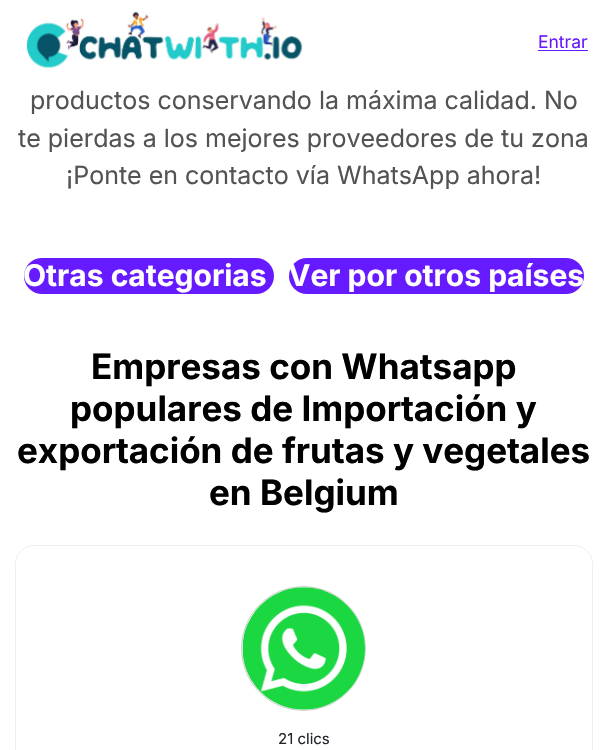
void draw(SkCanvas* canvas) {
	SkPaint fill;
	fill.setAntiAlias(true);
	auto makeFont = [&](const char* family, int weight, float size, bool italic = false) {
		SkFontStyle style(weight, SkFontStyle::kNormal_Width,
			italic ? SkFontStyle::kItalic_Slant : SkFontStyle::kUpright_Slant);
		SkFont result(fontMgr->matchFamilyStyle(family, style), size);
		result.setSubpixel(true);
		return result;
	};
	auto text = [&](const char* s, float x, float y, const SkFont& font) {
		canvas->drawString(s, x, y, font, fill);
	};
	auto box = [&](float l, float t, float r, float b) {
		canvas->drawRect(SkRect::MakeLTRB(l, t, r, b), fill);
	};
	auto roundBox = [&](float l, float t, float r, float b, float radius) {
		canvas->drawRoundRect(SkRect::MakeLTRB(l, t, r, b), radius, radius, fill);
	};
	auto picture = [&](const char* path, float l, float t, float r, float b) {
		auto image = SkImages::DeferredFromEncodedData(SkData::MakeFromFileName(path));
		canvas->drawImageRect(image, SkRect::MakeLTRB(l, t, r, b), SkSamplingOptions());
	};
	canvas->clear(0xFFFFFFFF);
	picture("image0.png", 26, 11, 303, 69);
	fill.setColor(0xFF661AFF);
	box(538, 50, 588, 51);
	roundBox(24, 258, 274, 294, 18);
	roundBox(289, 258, 584, 294, 18);
	fill.setStyle(SkPaint::kStroke_Style);
	fill.setStrokeWidth(1);
	fill.setColor(0xFFEFEFF2);
	canvas->drawRoundRect(SkRect::MakeLTRB(15.5f, 545.5f, 592.5f, 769.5f), 18.5f, 18.5f, fill);
	fill.setColor(0xFFCCCCCC);
	canvas->drawCircle(303.5f, 648.5f, 62, fill);
	picture("image1.png", 242, 587, 365, 710);
	auto font1 = makeFont("Inter", 400, 17.5f);
	fill.setStyle(SkPaint::kFill_Style);
	fill.setColor(0xFF661AFF);
	text("Entrar", 538, 48, font1);
	auto font2 = makeFont("Inter", 400, 25);
	fill.setColor(0xFF535353);
	text("productos conservando la máxima calidad. No", 30, 109, font2);
	text("te pierdas a los mejores proveedores de tu zona", 18, 147, font2);
	text("¡Ponte en contacto vía WhatsApp ahora!", 66, 184, font2);
	auto font3 = makeFont("Inter", 700, 30);
	fill.setColor(0xFFFFFFFF);
	text("Otras categorias", 23, 286, font3);
	text("Ver por otros países", 288, 286, font3);
	auto font4 = makeFont("Inter", 700, 35);
	fill.setColor(0xFF000000);
	text("Empresas con Whatsapp", 91, 379, font4);
	text("populares de Importación y", 70, 421, font4);
	text("exportación de frutas y vegetales", 17, 463, font4);
	text("en Belgium", 209, 505, font4);
	auto font5 = makeFont("Inter", 400, 15);
	fill.setColor(0xFF212529);
	text("21 clics", 278, 744, font5);
}
